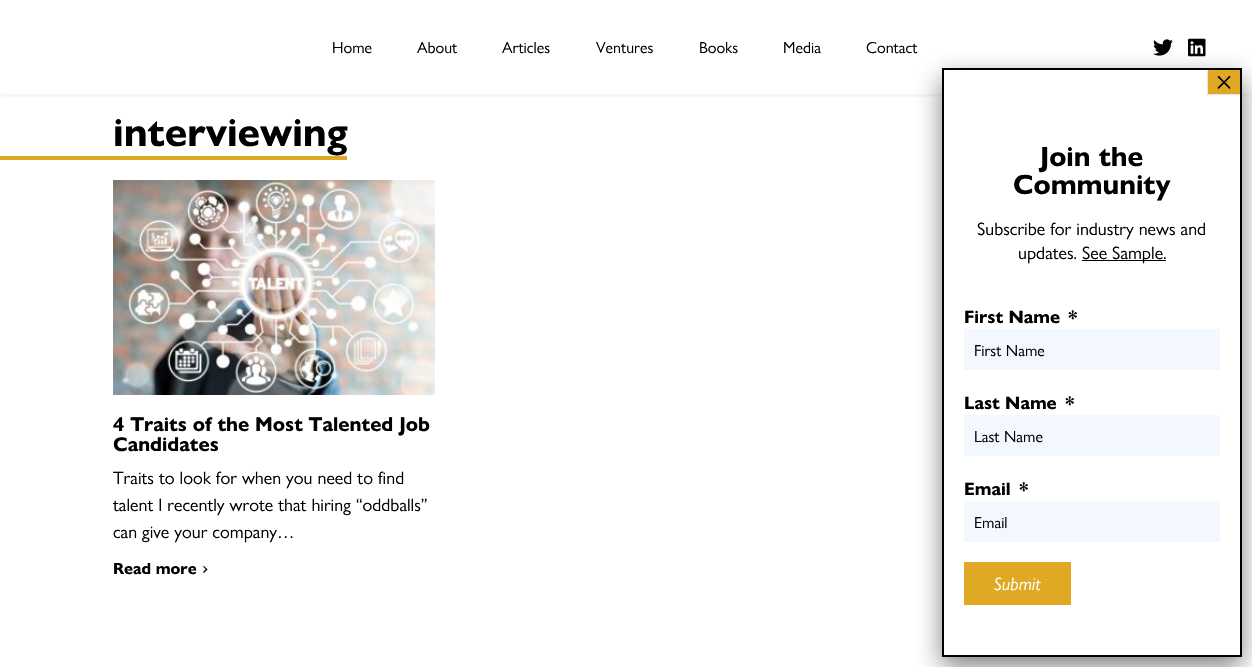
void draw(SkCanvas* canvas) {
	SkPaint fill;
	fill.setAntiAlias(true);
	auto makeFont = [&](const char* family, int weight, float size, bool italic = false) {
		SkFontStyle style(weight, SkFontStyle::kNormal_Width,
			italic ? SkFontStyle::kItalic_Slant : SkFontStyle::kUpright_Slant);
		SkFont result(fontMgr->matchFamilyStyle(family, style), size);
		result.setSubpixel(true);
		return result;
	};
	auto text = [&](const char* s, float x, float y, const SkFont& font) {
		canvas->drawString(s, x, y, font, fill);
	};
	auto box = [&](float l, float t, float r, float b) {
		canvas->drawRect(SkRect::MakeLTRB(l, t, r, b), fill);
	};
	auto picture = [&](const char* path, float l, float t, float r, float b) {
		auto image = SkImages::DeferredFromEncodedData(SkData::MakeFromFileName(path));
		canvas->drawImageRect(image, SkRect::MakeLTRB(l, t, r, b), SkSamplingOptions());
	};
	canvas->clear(0xFFFFFFFF);
	canvas->save();
	canvas->clipRect(SkRect::MakeLTRB(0, 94, 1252, 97));
	fill.setColor(0x1A000000);
	fill.setMaskFilter(SkMaskFilter::MakeBlur(kNormal_SkBlurStyle, 3.5f));
	canvas->drawRect(SkRect::MakeLTRB(0, 0, 1252, 94), fill);
	fill.setMaskFilter(nullptr);
	canvas->restore();
	picture("image0.png", 1153, 39, 1173, 56);
	picture("image1.png", 1188, 38, 1206, 57);
	fill.setColor(0xFFE0A924);
	box(0, 156, 347, 160);
	picture("image2.png", 113, 180, 435, 395);
	fill.setColor(0xFF000000);
	canvas->drawPath(SkPathBuilder().moveTo(203, 566.5f).lineTo(204, 566).lineTo(207.5f, 569.5f).lineTo(206.5f, 570).close().detach(), fill);
	canvas->drawPath(SkPathBuilder().moveTo(203, 572).lineTo(206.5f, 568.5f).lineTo(207.5f, 569.5f).lineTo(204, 573).close().detach(), fill);
	fill.setColor(0x80020202);
	fill.setMaskFilter(SkMaskFilter::MakeBlur(kNormal_SkBlurStyle, 12.5f));
	canvas->drawRect(SkRect::MakeLTRB(942, 78, 1242, 667), fill);
	fill.setMaskFilter(nullptr);
	fill.setColor(0xFFFFFFFF);
	canvas->drawRect(SkRect::MakeLTRB(943, 69, 1241, 656), fill);
	fill.setStyle(SkPaint::kStroke_Style);
	fill.setStrokeWidth(2);
	fill.setColor(0xFF000000);
	canvas->drawRect(SkRect::MakeLTRB(943, 69, 1241, 656), fill);
	fill.setStyle(SkPaint::kFill_Style);
	fill.setColor(0x1A020202);
	fill.setMaskFilter(SkMaskFilter::MakeBlur(kNormal_SkBlurStyle, 0.5f));
	canvas->drawRect(SkRect::MakeLTRB(1207, 71, 1239, 95), fill);
	fill.setMaskFilter(nullptr);
	fill.setColor(0xFFE0A924);
	box(1208, 70, 1240, 94);
	fill.setColor(0xFF000000);
	box(1082, 260, 1166, 261);
	fill.setColor(0xFFF3F7FE);
	box(964, 329, 1220, 370);
	box(964, 415, 1220, 456);
	box(964, 501, 1220, 542);
	fill.setColor(0xFFE0A924);
	box(964, 562, 1071, 605);
	auto font1 = makeFont("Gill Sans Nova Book", 400, 16);
	fill.setColor(0xFF000000);
	text("Home", 332, 53, font1);
	text("About", 417, 53, font1);
	text("Articles", 502, 53, font1);
	text("Ventures", 596, 53, font1);
	text("Books", 699, 53, font1);
	text("Media", 783, 53, font1);
	text("Contact", 866, 53, font1);
	auto font2 = makeFont("Gill Sans Nova Book", 700, 40);
	text("interviewing", 113, 146, font2);
	auto font3 = makeFont("Gill Sans Nova Book", 700, 20);
	text("4 Traits of the Most Talented Job", 113, 431, font3);
	text("Candidates", 113, 451, font3);
	auto font4 = makeFont("Gill Sans Nova Book", 400, 18);
	text("Traits to look for when you need to find", 113, 484, font4);
	text("talent I recently wrote that hiring “oddballs”", 113, 511, font4);
	text("can give your company…", 113, 538, font4);
	auto font5 = makeFont("Gill Sans Nova Book", 700, 16);
	text("Read more", 113, 574, font5);
	auto font6 = makeFont("Liberation Serif", 400, 32);
	text("×", 1215, 93, font6);
	auto font7 = makeFont("Gill Sans Nova Book", 700, 28);
	text("Join the", 1040, 166, font7);
	text("Community", 1013, 194, font7);
	text("Subscribe for industry news and", 977, 235, font4);
	text("updates.", 1018, 259, font4);
	text("See Sample.", 1082, 259, font4);
	auto font8 = makeFont("Gill Sans Nova Book", 700, 18);
	text("First Name", 964, 323, font8);
	text("*", 1068, 323, font8);
	text("First Name", 974, 356, font1);
	text("Last Name", 964, 409, font8);
	text("*", 1065, 409, font8);
	text("Last Name", 974, 442, font1);
	text("Email", 964, 495, font8);
	text("*", 1019, 495, font8);
	text("Email", 974, 528, font1);
	auto font9 = makeFont("Gill Sans Nova Book", 400, 18, true);
	fill.setColor(0xFFFFFFFF);
	text("Submit", 994, 590, font9);
}
